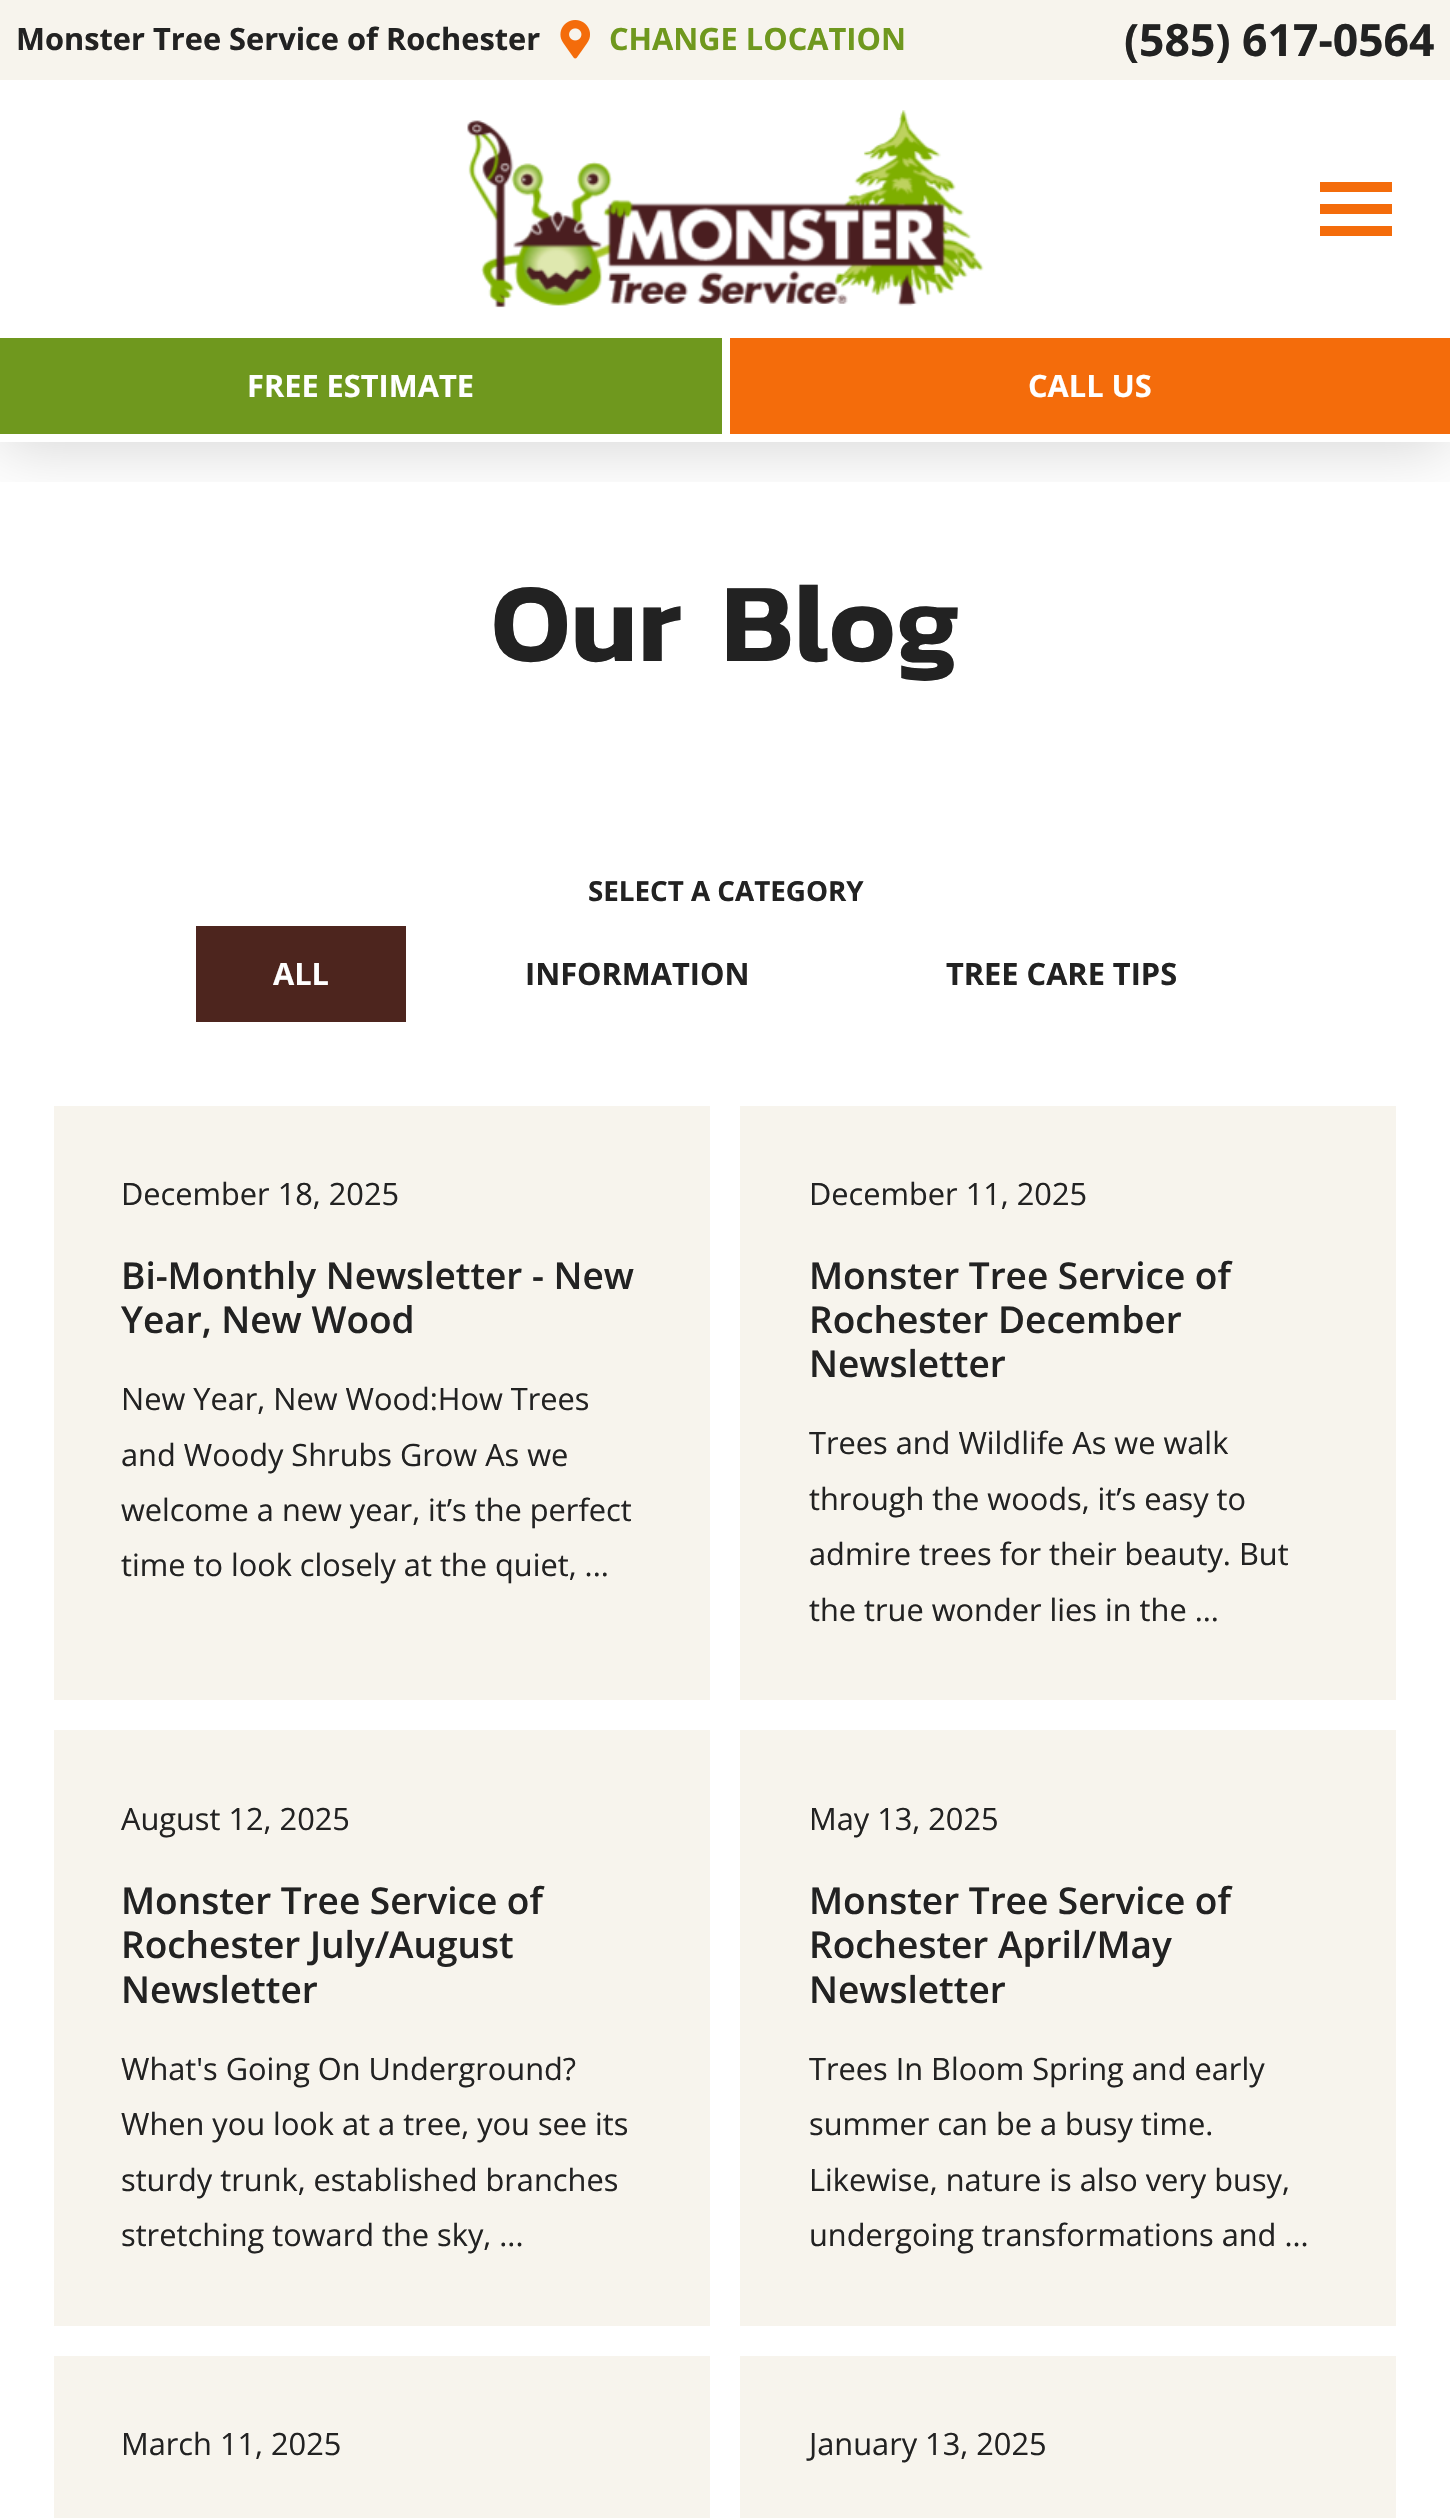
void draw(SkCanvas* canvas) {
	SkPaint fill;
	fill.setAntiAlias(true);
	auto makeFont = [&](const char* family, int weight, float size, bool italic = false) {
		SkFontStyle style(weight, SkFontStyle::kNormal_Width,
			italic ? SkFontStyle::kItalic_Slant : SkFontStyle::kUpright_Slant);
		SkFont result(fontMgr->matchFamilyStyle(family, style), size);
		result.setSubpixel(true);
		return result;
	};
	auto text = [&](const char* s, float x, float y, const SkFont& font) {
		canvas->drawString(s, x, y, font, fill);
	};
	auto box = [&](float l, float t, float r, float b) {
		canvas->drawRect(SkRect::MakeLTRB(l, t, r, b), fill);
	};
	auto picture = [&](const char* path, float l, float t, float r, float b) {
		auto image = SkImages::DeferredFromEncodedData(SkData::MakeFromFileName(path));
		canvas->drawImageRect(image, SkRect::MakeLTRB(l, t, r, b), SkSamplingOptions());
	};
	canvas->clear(0xFFFFFFFF);
	canvas->save();
	canvas->clipRect(SkRect::MakeLTRB(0, 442, 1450, 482));
	fill.setColor(0x29000000);
	fill.setMaskFilter(SkMaskFilter::MakeBlur(kNormal_SkBlurStyle, 30));
	canvas->drawRect(SkRect::MakeLTRB(0, 6, 1450, 448), fill);
	fill.setMaskFilter(nullptr);
	canvas->restore();
	fill.setColor(0xFFF7F4ED);
	box(0, 0, 1450, 80);
	picture("image0.png", 560, 20, 590, 59);
	picture("image1.png", 467, 110, 984, 308);
	fill.setColor(0xFFF46C0B);
	box(1320, 182, 1392, 192);
	box(1320, 204, 1392, 214);
	box(1320, 226, 1392, 236);
	fill.setColor(0xFF6F981E);
	box(0, 338, 722, 434);
	fill.setColor(0xFFF46C0B);
	box(730, 338, 1450, 434);
	fill.setColor(0xFF4D251E);
	box(196, 926, 406, 1022);
	fill.setColor(0xFFF7F4ED);
	box(54, 1106, 710, 1700);
	box(740, 1106, 1396, 1700);
	box(54, 1730, 710, 2326);
	box(740, 1730, 1396, 2326);
	box(54, 2356, 710, 2518);
	box(740, 2356, 1396, 2518);
	auto font1 = makeFont("Open Sans", 700, 30.75f);
	fill.setColor(0xFF222222);
	text("Monster Tree Service of Rochester", 16, 50, font1);
	fill.setColor(0xFF6F981E);
	text("CHANGE LOCATION", 609, 50, font1);
	auto font2 = makeFont("Open Sans", 700, 44.5f);
	fill.setColor(0xFF222222);
	text("(585) 617-0564", 1124, 56, font2);
	fill.setColor(0xFFFFFFFF);
	text("FREE ESTIMATE", 247, 397, font1);
	text("CALL US", 1028, 397, font1);
	auto font3 = makeFont("Kanit", 600, 113);
	fill.setColor(0xFF222222);
	text("Our Blog", 491, 661, font3);
	auto font4 = makeFont("Open Sans", 700, 27.75f);
	text("SELECT A CATEGORY", 588, 901, font4);
	fill.setColor(0xFFFFFFFF);
	text("ALL", 273, 985, font1);
	fill.setColor(0xFF222222);
	text("INFORMATION", 525, 985, font1);
	text("TREE CARE TIPS", 946, 985, font1);
	auto font5 = makeFont("Open Sans", 400, 30.75f);
	text("December 18, 2025", 121, 1205, font5);
	auto font6 = makeFont("Open Sans", 600, 37);
	text("Bi-Monthly Newsletter - New", 121, 1289, font6);
	text("Year, New Wood", 121, 1333, font6);
	text("New Year, New Wood:How Trees", 121, 1410, font5);
	text("and Woody Shrubs Grow As we", 121, 1466, font5);
	text("welcome a new year, it’s the perfect", 121, 1521, font5);
	text("time to look closely at the quiet, ...", 121, 1576, font5);
	text("December 11, 2025", 809, 1205, font5);
	text("Monster Tree Service of", 809, 1289, font6);
	text("Rochester December", 809, 1333, font6);
	text("Newsletter", 809, 1377, font6);
	text("Trees and Wildlife As we walk", 809, 1454, font5);
	text("through the woods, it’s easy to", 809, 1510, font5);
	text("admire trees for their beauty. But", 809, 1565, font5);
	text("the true wonder lies in the ...", 809, 1621, font5);
	text("August 12, 2025", 121, 1830, font5);
	text("Monster Tree Service of", 121, 1914, font6);
	text("Rochester July/August", 121, 1958, font6);
	text("Newsletter", 121, 2003, font6);
	text("What's Going On Underground?", 121, 2080, font5);
	text("When you look at a tree, you see its", 121, 2135, font5);
	text("sturdy trunk, established branches", 121, 2191, font5);
	text("stretching toward the sky, ...", 121, 2246, font5);
	text("May 13, 2025", 809, 1830, font5);
	text("Monster Tree Service of", 809, 1914, font6);
	text("Rochester April/May", 809, 1958, font6);
	text("Newsletter", 809, 2003, font6);
	text("Trees In Bloom Spring and early", 809, 2080, font5);
	text("summer can be a busy time.", 809, 2135, font5);
	text("Likewise, nature is also very busy,", 809, 2191, font5);
	text("undergoing transformations and ...", 809, 2246, font5);
	text("March 11, 2025", 121, 2455, font5);
	text("January 13, 2025", 809, 2455, font5);
}
